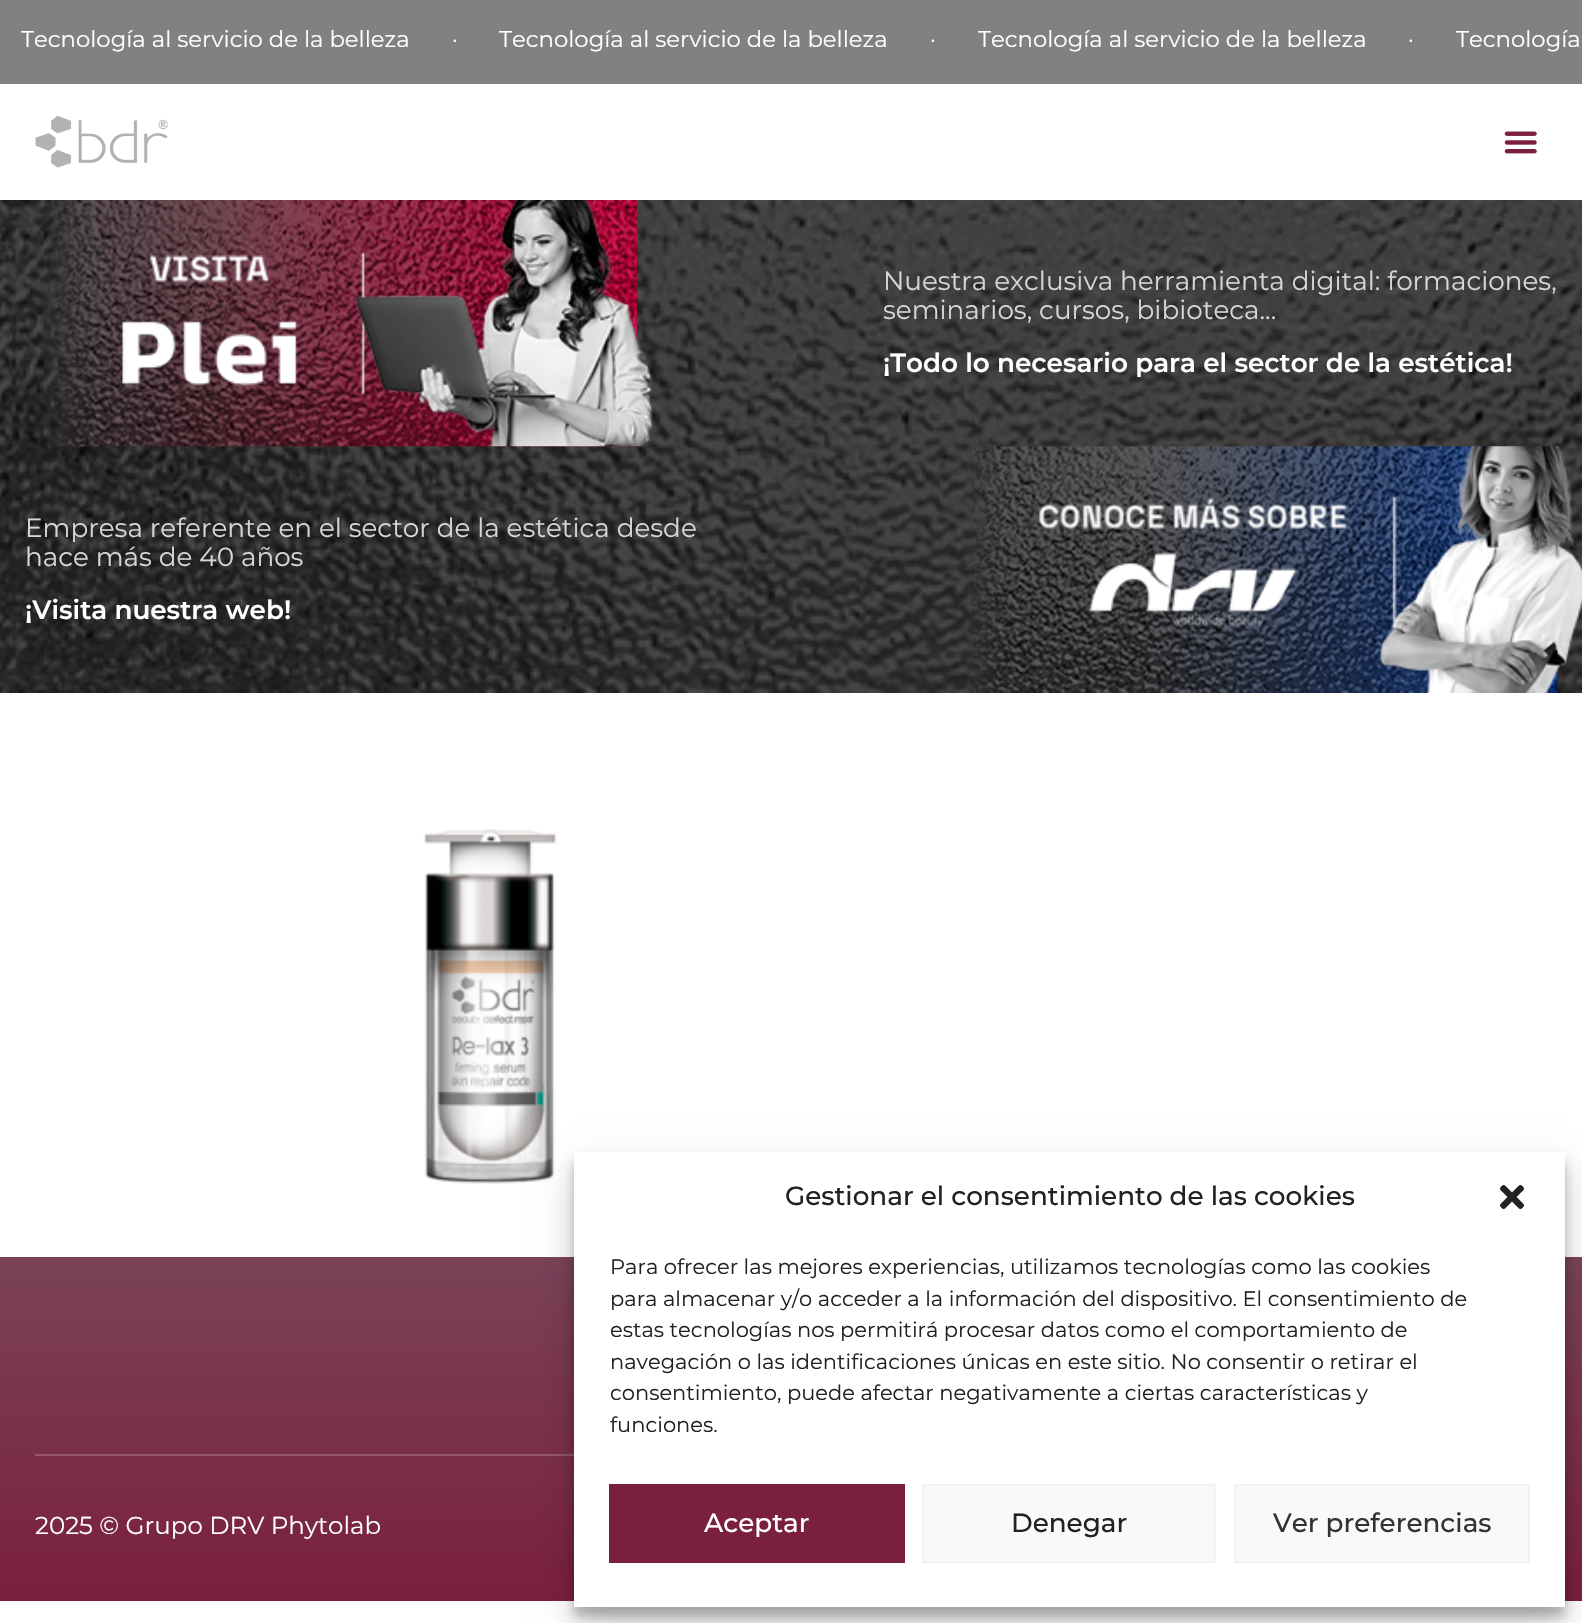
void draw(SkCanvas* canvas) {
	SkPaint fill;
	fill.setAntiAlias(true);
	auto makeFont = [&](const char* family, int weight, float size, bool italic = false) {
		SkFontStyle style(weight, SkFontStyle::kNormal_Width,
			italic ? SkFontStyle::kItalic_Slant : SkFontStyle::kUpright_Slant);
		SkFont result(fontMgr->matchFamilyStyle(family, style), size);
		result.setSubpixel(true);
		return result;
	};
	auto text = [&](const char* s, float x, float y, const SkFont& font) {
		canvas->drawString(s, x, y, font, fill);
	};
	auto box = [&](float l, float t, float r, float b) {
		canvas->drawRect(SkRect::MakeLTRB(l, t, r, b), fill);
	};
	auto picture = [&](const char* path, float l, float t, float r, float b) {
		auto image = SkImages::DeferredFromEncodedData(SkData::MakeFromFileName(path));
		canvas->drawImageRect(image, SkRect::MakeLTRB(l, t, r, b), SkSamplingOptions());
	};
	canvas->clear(0xFFFFFFFF);
	fill.setColor(0xFF818181);
	box(0, 0, 1582, 84);
	picture("image0.png", 35, 115, 168, 168);
	picture("image1.png", 1504, 131, 1537, 154);
	picture("image2.png", 0, 200, 1582, 693);
	picture("image3.png", 43, 200, 637, 447);
	picture("image4.png", 122, 200, 653, 447);
	picture("image5.png", 966, 446, 1558, 693);
	picture("image6.png", 1039, 446, 1582, 693);
	picture("image7.png", 423, 829, 557, 1184);
	{
		const SkColor colors[] = {0xFF7A4358, 0xFF7A1F3E};
		const float stops[] = {0, 1};
		const SkPoint ends[] = {{791, 1257}, {791, 1601}};
		fill.setShader(SkGradientShader::MakeLinear(ends, colors, stops, 2, SkTileMode::kClamp));
		fill.setAlpha(255);
	}
	box(0, 1257, 1582, 1601);
	fill.setShader(nullptr);
	fill.setColor(0xFF93566C);
	box(35, 1454, 574, 1456);
	fill.setColor(0x3B000000);
	fill.setMaskFilter(SkMaskFilter::MakeBlur(kNormal_SkBlurStyle, 5));
	canvas->drawRect(SkRect::MakeLTRB(574, 1162, 1565, 1617), fill);
	fill.setMaskFilter(nullptr);
	fill.setColor(0x30000000);
	fill.setMaskFilter(SkMaskFilter::MakeBlur(kNormal_SkBlurStyle, 17.5f));
	canvas->drawRect(SkRect::MakeLTRB(574, 1169, 1565, 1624), fill);
	fill.setMaskFilter(nullptr);
	fill.setColor(0xFFFFFFFF);
	box(574, 1152, 1565, 1607);
	picture("image8.png", 1500, 1185, 1524, 1209);
	fill.setColor(0xFF7A1F3E);
	box(609, 1484, 905, 1563);
	fill.setColor(0xFFF9F9F9);
	canvas->drawRect(SkRect::MakeLTRB(923, 1485, 1215, 1562), fill);
	fill.setStyle(SkPaint::kStroke_Style);
	fill.setStrokeWidth(2);
	fill.setColor(0xFFF2F2F2);
	canvas->drawRect(SkRect::MakeLTRB(923, 1485, 1215, 1562), fill);
	fill.setStyle(SkPaint::kFill_Style);
	fill.setColor(0xFFF9F9F9);
	canvas->drawRect(SkRect::MakeLTRB(1235, 1485, 1529, 1562), fill);
	fill.setStyle(SkPaint::kStroke_Style);
	fill.setColor(0xFFF2F2F2);
	canvas->drawRect(SkRect::MakeLTRB(1235, 1485, 1529, 1562), fill);
	auto font1 = makeFont("Montserrat", 400, 22.75f);
	fill.setStyle(SkPaint::kFill_Style);
	fill.setColor(0xFFFFFFFF);
	text("Tecnología al servicio de la belleza", 21, 47, font1);
	text("·", 452, 47, font1);
	text("Tecnología al servicio de la belleza", 499, 47, font1);
	text("·", 930, 47, font1);
	text("Tecnología al servicio de la belleza", 978, 47, font1);
	text("·", 1408, 47, font1);
	text("Tecnología", 1456, 47, font1);
	auto font2 = makeFont("Montserrat", 400, 26.25f);
	fill.setColor(0xFFD6D6D6);
	text("Nuestra exclusiva herramienta digital: formaciones,", 883, 290, font2);
	text("seminarios, cursos, bibioteca...", 883, 319, font2);
	auto font3 = makeFont("Montserrat", 600, 26.25f);
	fill.setColor(0xFFFFFFFF);
	text("¡Todo lo necesario para el sector de la estética!", 883, 372, font3);
	fill.setColor(0xFFD6D6D6);
	text("Empresa referente en el sector de la estética desde", 25, 537, font2);
	text("hace más de 40 años", 25, 566, font2);
	fill.setColor(0xFFFFFFFF);
	text("¡Visita nuestra web!", 25, 619, font3);
	auto font4 = makeFont("Montserrat", 400, 24.5f);
	text("2025 © Grupo DRV Phytolab", 35, 1534, font4);
	auto font5 = makeFont("Montserrat", 500, 26.25f);
	fill.setColor(0xFF222222);
	text("Gestionar el consentimiento de las cookies", 785, 1205, font5);
	auto font6 = makeFont("Montserrat", 400, 21);
	text("Para ofrecer las mejores experiencias, utilizamos tecnologías como las cookies", 610, 1274, font6);
	text("para almacenar y/o acceder a la información del dispositivo. El consentimiento de", 610, 1306, font6);
	text("estas tecnologías nos permitirá procesar datos como el comportamiento de", 610, 1337, font6);
	text("navegación o las identificaciones únicas en este sitio. No consentir o retirar el", 610, 1369, font6);
	text("consentimiento, puede afectar negativamente a ciertas características y", 610, 1400, font6);
	text("funciones.", 610, 1432, font6);
	fill.setColor(0xFFFFFFFF);
	text("Aceptar", 704, 1532, font5);
	fill.setColor(0xFF222222);
	text("Denegar", 1011, 1532, font5);
	fill.setColor(0xFF333333);
	text("Ver preferencias", 1273, 1532, font5);
}
